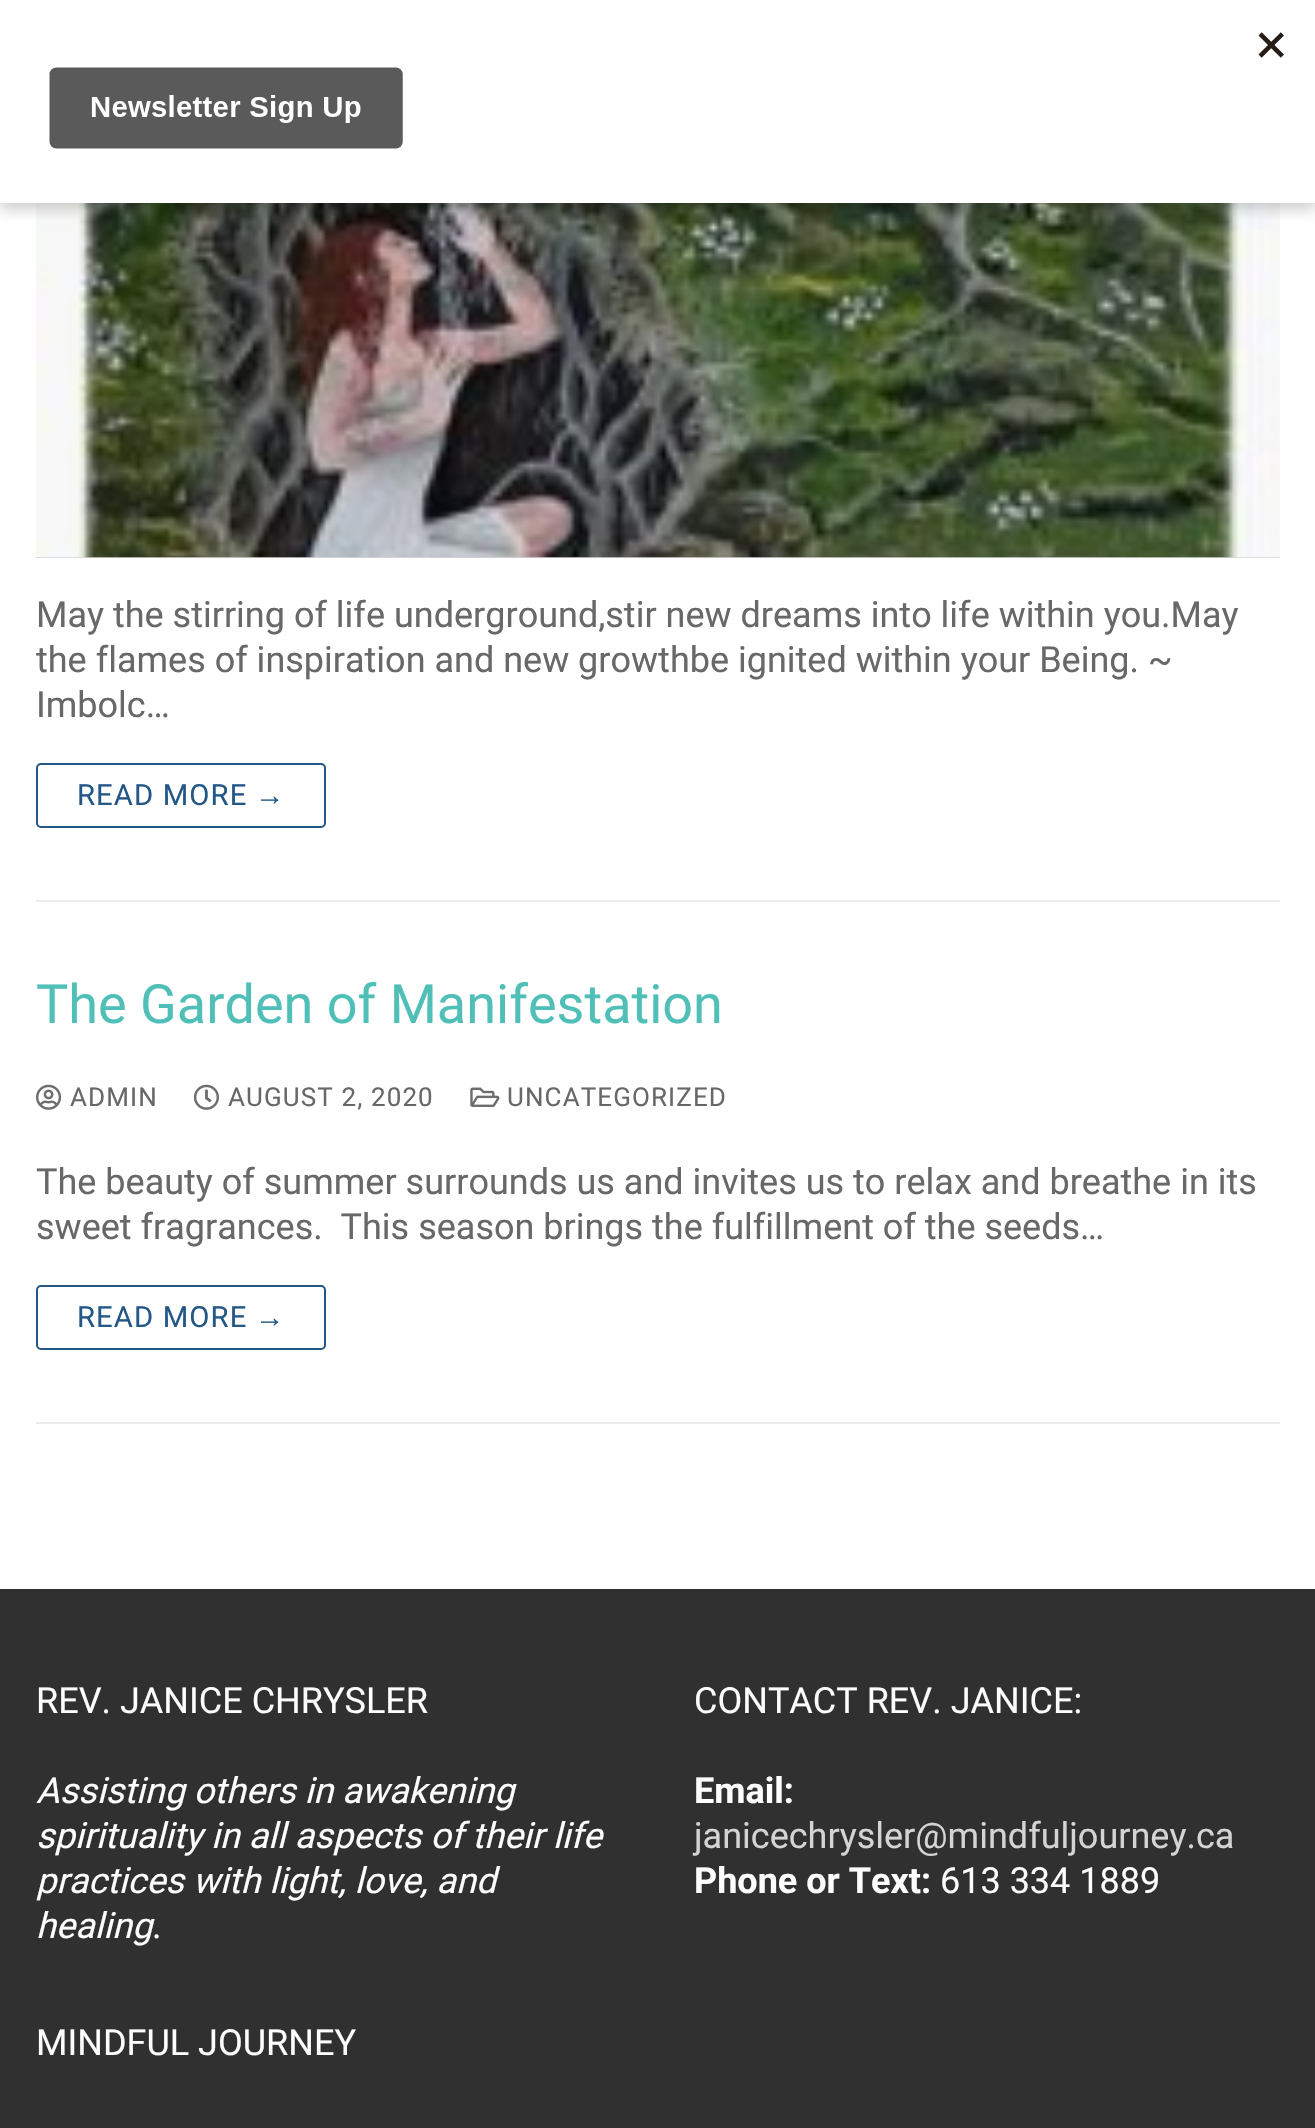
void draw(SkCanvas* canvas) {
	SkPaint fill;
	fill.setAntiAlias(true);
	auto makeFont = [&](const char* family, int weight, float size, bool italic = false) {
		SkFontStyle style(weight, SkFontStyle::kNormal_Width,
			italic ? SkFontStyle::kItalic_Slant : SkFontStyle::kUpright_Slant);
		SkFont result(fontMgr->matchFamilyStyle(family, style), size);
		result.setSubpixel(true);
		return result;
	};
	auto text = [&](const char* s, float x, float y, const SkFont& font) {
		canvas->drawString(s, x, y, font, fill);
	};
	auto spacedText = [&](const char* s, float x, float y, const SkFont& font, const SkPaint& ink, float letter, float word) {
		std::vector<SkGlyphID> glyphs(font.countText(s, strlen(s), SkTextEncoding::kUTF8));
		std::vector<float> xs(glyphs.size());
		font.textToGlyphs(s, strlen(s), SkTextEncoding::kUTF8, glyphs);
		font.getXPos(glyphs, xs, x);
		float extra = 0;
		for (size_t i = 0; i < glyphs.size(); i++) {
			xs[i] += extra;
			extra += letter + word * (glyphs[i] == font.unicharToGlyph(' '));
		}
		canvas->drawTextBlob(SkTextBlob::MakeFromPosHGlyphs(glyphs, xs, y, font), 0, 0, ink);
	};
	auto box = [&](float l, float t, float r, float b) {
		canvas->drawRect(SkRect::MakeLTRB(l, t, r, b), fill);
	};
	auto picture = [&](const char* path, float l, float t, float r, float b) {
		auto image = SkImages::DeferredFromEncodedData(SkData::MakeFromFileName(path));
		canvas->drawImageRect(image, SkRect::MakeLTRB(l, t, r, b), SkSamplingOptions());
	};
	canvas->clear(0xFFFFFFFF);
	fill.setColor(0xFFD5D5D5);
	box(36, 557, 1280, 558);
	picture("image1.png", 36, 203, 1280, 558);
	fill.setColor(0x33000000);
	fill.setMaskFilter(SkMaskFilter::MakeBlur(kNormal_SkBlurStyle, 7));
	canvas->drawRect(SkRect::MakeLTRB(0, 7, 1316, 209), fill);
	fill.setMaskFilter(nullptr);
	fill.setColor(0xFFFFFFFF);
	box(0, 0, 1315, 203);
	picture("image0.png", 49, 32, 1284, 149);
	fill.setColor(0xFFEAECEE);
	box(36, 900, 1280, 902);
	fill.setStyle(SkPaint::kStroke_Style);
	fill.setStrokeWidth(2);
	fill.setColor(0xFF235787);
	canvas->drawRoundRect(SkRect::MakeLTRB(37, 764, 325, 827), 4, 4, fill);
	fill.setStyle(SkPaint::kFill_Style);
	fill.setColor(0xFFEAECEE);
	box(36, 1422, 1280, 1424);
	picture("image2.png", 36, 1084, 62, 1110);
	picture("image3.png", 193, 1084, 219, 1110);
	picture("image4.png", 470, 1087, 500, 1107);
	fill.setStyle(SkPaint::kStroke_Style);
	fill.setColor(0xFF235787);
	canvas->drawRoundRect(SkRect::MakeLTRB(37, 1286, 325, 1349), 4, 4, fill);
	fill.setStyle(SkPaint::kFill_Style);
	fill.setColor(0xFF303030);
	box(0, 1589, 1315, 2128);
	auto font1 = makeFont("Roboto", 400, 36);
	fill.setColor(0xFF686868);
	text("May the stirring of life underground,stir new dreams into life within you.May", 36, 627, font1);
	text("the flames of inspiration and new growthbe ignited within your Being. ~", 36, 672, font1);
	text("Imbolc…", 36, 717, font1);
	auto font2 = makeFont("Roboto", 400, 29.25f);
	fill.setColor(0xFF235787);
	spacedText("READ MORE", 77, 805, font2, fill, 1.1f, 0);
	auto font3 = makeFont("Liberation Sans", 400, 29.25f);
	spacedText("→", 255, 805, font3, fill, 1.1f, 0);
	auto font4 = makeFont("Roboto", 400, 54);
	fill.setColor(0xFF50BFB8);
	text("The Garden of Manifestation", 36, 1023, font4);
	auto font5 = makeFont("Roboto", 400, 26);
	fill.setColor(0xFF686868);
	spacedText("ADMIN", 70, 1106, font5, fill, 1.1f, 0);
	spacedText("AUGUST 2, 2020", 228, 1106, font5, fill, 1.1f, 0);
	spacedText("UNCATEGORIZED", 507, 1106, font5, fill, 1.1f, 0);
	text("The beauty of summer surrounds us and invites us to relax and breathe in its", 36, 1194, font1);
	text("sweet fragrances.  This season brings the fulfillment of the seeds…", 36, 1239, font1);
	fill.setColor(0xFF235787);
	spacedText("READ MORE", 77, 1327, font2, fill, 1.1f, 0);
	spacedText("→", 255, 1327, font3, fill, 1.1f, 0);
	fill.setColor(0xFFFDFDFD);
	text("REV. JANICE CHRYSLER", 36, 1713, font1);
	auto font6 = makeFont("Roboto", 400, 36, true);
	text("Assisting others in awakening", 36, 1803, font6);
	text("spirituality in all aspects of their life", 36, 1848, font6);
	text("practices with light, love, and", 36, 1893, font6);
	text("healing", 36, 1938, font6);
	text(".", 152, 1938, font1);
	text("CONTACT REV. JANICE:", 694, 1713, font1);
	auto font7 = makeFont("Roboto", 700, 36);
	text("Email:", 694, 1803, font7);
	fill.setColor(0xFFD4D4D4);
	text("janicechrysler@mindfuljourney.ca", 694, 1848, font1);
	fill.setColor(0xFFFDFDFD);
	text("Phone or Text:", 694, 1893, font7);
	text("613 334 1889", 940, 1893, font1);
	text("MINDFUL JOURNEY", 36, 2055, font1);
}
